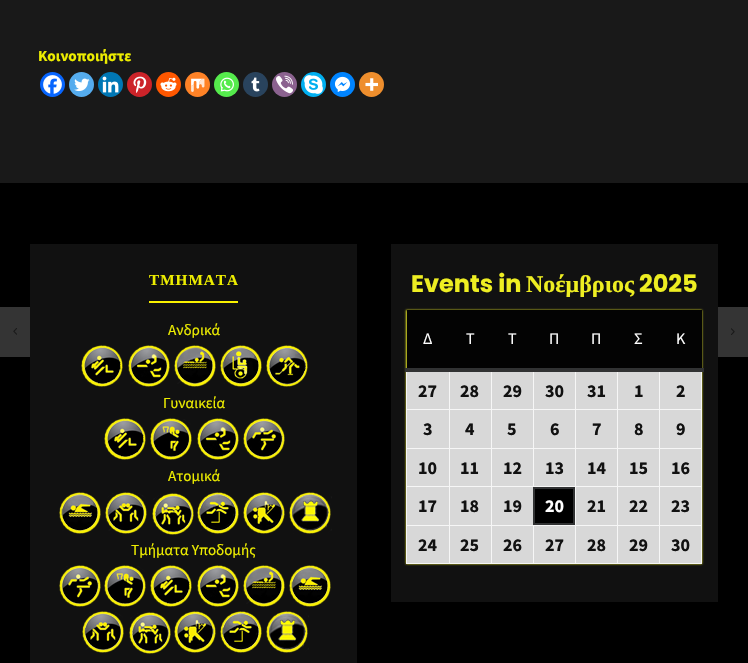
void draw(SkCanvas* canvas) {
	SkPaint fill;
	fill.setAntiAlias(true);
	auto makeFont = [&](const char* family, int weight, float size, bool italic = false) {
		SkFontStyle style(weight, SkFontStyle::kNormal_Width,
			italic ? SkFontStyle::kItalic_Slant : SkFontStyle::kUpright_Slant);
		SkFont result(fontMgr->matchFamilyStyle(family, style), size);
		result.setSubpixel(true);
		return result;
	};
	auto text = [&](const char* s, float x, float y, const SkFont& font) {
		canvas->drawString(s, x, y, font, fill);
	};
	auto spacedText = [&](const char* s, float x, float y, const SkFont& font, const SkPaint& ink, float letter, float word) {
		std::vector<SkGlyphID> glyphs(font.countText(s, strlen(s), SkTextEncoding::kUTF8));
		std::vector<float> xs(glyphs.size());
		font.textToGlyphs(s, strlen(s), SkTextEncoding::kUTF8, glyphs);
		font.getXPos(glyphs, xs, x);
		float extra = 0;
		for (size_t i = 0; i < glyphs.size(); i++) {
			xs[i] += extra;
			extra += letter + word * (glyphs[i] == font.unicharToGlyph(' '));
		}
		canvas->drawTextBlob(SkTextBlob::MakeFromPosHGlyphs(glyphs, xs, y, font), 0, 0, ink);
	};
	auto box = [&](float l, float t, float r, float b) {
		canvas->drawRect(SkRect::MakeLTRB(l, t, r, b), fill);
	};
	auto picture = [&](const char* path, float l, float t, float r, float b) {
		auto image = SkImages::DeferredFromEncodedData(SkData::MakeFromFileName(path));
		canvas->drawImageRect(image, SkRect::MakeLTRB(l, t, r, b), SkSamplingOptions());
	};
	canvas->clear(0xFF000000);
	fill.setColor(0xFF191919);
	box(0, 0, 748, 183);
	fill.setColor(0xFF0765FE);
	canvas->drawCircle(52.5f, 84.5f, 12.5f, fill);
	picture("image0.png", 43, 75, 62, 94);
	fill.setColor(0xFF55ACEE);
	canvas->drawCircle(81.5f, 84.5f, 12.5f, fill);
	picture("image1.png", 74, 78, 90, 92);
	fill.setColor(0xFF0077B5);
	canvas->drawCircle(110.5f, 84.5f, 12.5f, fill);
	picture("image2.png", 102, 76, 119, 93);
	fill.setColor(0xFFCC2329);
	canvas->drawCircle(139.5f, 84.5f, 12.5f, fill);
	picture("image3.png", 133, 76, 147, 93);
	fill.setColor(0xFFFF5700);
	canvas->drawCircle(168.5f, 84.5f, 12.5f, fill);
	picture("image4.png", 160, 77, 177, 92);
	fill.setColor(0xFFFF8226);
	canvas->drawCircle(197.5f, 84.5f, 12.5f, fill);
	picture("image5.png", 191, 78, 205, 92);
	fill.setColor(0xFF55EB4C);
	canvas->drawCircle(226.5f, 84.5f, 12.5f, fill);
	picture("image6.png", 220, 77, 234, 92);
	fill.setColor(0xFF29435D);
	canvas->drawCircle(255.5f, 84.5f, 12.5f, fill);
	picture("image7.png", 251, 77, 260, 92);
	fill.setColor(0xFF8B628F);
	canvas->drawCircle(284.5f, 84.5f, 12.5f, fill);
	picture("image8.png", 276, 75, 293, 94);
	fill.setColor(0xFF00AFF0);
	canvas->drawCircle(313.5f, 84.5f, 12.5f, fill);
	picture("image9.png", 304, 75, 323, 94);
	fill.setColor(0xFF0084FF);
	canvas->drawCircle(342.5f, 84.5f, 12.5f, fill);
	picture("image10.png", 334, 76, 351, 92);
	fill.setColor(0xFFEE8E2D);
	canvas->drawCircle(371.5f, 84.5f, 12.5f, fill);
	picture("image11.png", 365, 78, 378, 91);
	fill.setColor(0xFF111111);
	box(30, 244, 357, 663);
	fill.setColor(0xFFF9F100);
	box(149, 301, 238, 303);
	picture("image12.png", 81, 345, 123, 387);
	picture("image13.png", 128, 345, 170, 387);
	picture("image14.png", 174, 345, 216, 387);
	picture("image15.png", 220, 345, 262, 387);
	picture("image16.png", 266, 345, 308, 387);
	picture("image12.png", 104, 418, 146, 460);
	picture("image17.png", 150, 418, 192, 460);
	picture("image13.png", 197, 418, 239, 460);
	picture("image18.png", 243, 418, 285, 460);
	picture("image19.png", 59, 492, 101, 534);
	picture("image20.png", 105, 492, 147, 534);
	picture("image21.png", 152, 493, 194, 535);
	picture("image22.png", 197, 492, 239, 534);
	picture("image23.png", 243, 492, 285, 534);
	picture("image24.png", 289, 492, 332, 534);
	picture("image18.png", 59, 565, 101, 607);
	picture("image17.png", 104, 565, 146, 607);
	picture("image12.png", 150, 565, 192, 607);
	picture("image13.png", 197, 565, 239, 607);
	picture("image14.png", 243, 565, 285, 607);
	picture("image19.png", 289, 565, 331, 607);
	picture("image20.png", 82, 611, 124, 653);
	picture("image21.png", 129, 612, 171, 654);
	picture("image23.png", 174, 611, 216, 653);
	picture("image22.png", 220, 611, 262, 653);
	picture("image24.png", 266, 611, 309, 653);
	fill.setColor(0xFF111111);
	box(391, 244, 718, 602);
	fill.setColor(0xFFEEEE22);
	fill.setMaskFilter(SkMaskFilter::MakeBlur(kNormal_SkBlurStyle, 1));
	canvas->drawRect(SkRect::MakeLTRB(406, 310, 702, 564), fill);
	fill.setMaskFilter(nullptr);
	fill.setColor(0xFFF6F6F6);
	box(659, 409, 702, 410);
	box(659, 448, 702, 449);
	box(659, 486, 702, 487);
	box(659, 525, 702, 526);
	box(701, 525, 702, 564);
	box(659, 563, 702, 564);
	box(659, 525, 660, 564);
	box(617, 525, 660, 526);
	box(659, 486, 660, 526);
	box(617, 486, 660, 487);
	box(659, 448, 660, 487);
	box(617, 448, 660, 449);
	box(659, 409, 660, 449);
	box(617, 409, 660, 410);
	box(617, 563, 660, 564);
	box(617, 525, 618, 564);
	box(575, 525, 618, 526);
	box(617, 486, 618, 526);
	box(575, 486, 618, 487);
	box(617, 448, 618, 487);
	box(575, 448, 618, 449);
	box(617, 409, 618, 449);
	box(575, 409, 618, 410);
	box(575, 563, 618, 564);
	box(575, 525, 576, 564);
	box(533, 525, 576, 526);
	box(575, 486, 576, 526);
	box(491, 486, 576, 487);
	box(575, 448, 576, 487);
	box(533, 448, 576, 449);
	box(575, 409, 576, 449);
	box(533, 409, 576, 410);
	box(533, 448, 534, 487);
	box(491, 448, 534, 449);
	box(533, 409, 534, 449);
	box(491, 409, 534, 410);
	box(533, 563, 576, 564);
	box(533, 525, 534, 564);
	box(491, 525, 534, 526);
	box(491, 563, 534, 564);
	box(491, 525, 492, 564);
	box(449, 525, 492, 526);
	box(491, 486, 492, 526);
	box(449, 486, 492, 487);
	box(491, 448, 492, 487);
	box(449, 448, 492, 449);
	box(491, 409, 492, 449);
	box(449, 409, 492, 410);
	box(449, 563, 492, 564);
	box(449, 525, 450, 564);
	box(406, 525, 450, 526);
	box(449, 486, 450, 526);
	box(406, 486, 450, 487);
	box(449, 448, 450, 487);
	box(406, 448, 450, 449);
	box(449, 409, 450, 449);
	box(406, 409, 450, 410);
	box(449, 369, 450, 410);
	box(491, 369, 492, 410);
	box(533, 369, 534, 410);
	box(575, 369, 576, 410);
	box(617, 369, 618, 410);
	box(659, 369, 660, 410);
	box(406, 563, 450, 564);
	box(406, 525, 407, 564);
	box(406, 486, 407, 526);
	box(406, 448, 407, 487);
	box(406, 369, 407, 449);
	box(701, 486, 702, 526);
	box(701, 448, 702, 487);
	box(701, 369, 702, 449);
	fill.setColor(0xFF313233);
	box(405, 368, 704, 372);
	fill.setColor(0xFF030303);
	box(407, 310, 702, 368);
	fill.setColor(0xFF000000);
	box(535, 489, 573, 523);
	fill.setColor(0xFFD8D8D8);
	box(407, 372, 449, 409);
	box(450, 372, 491, 409);
	box(492, 372, 533, 409);
	box(534, 372, 575, 409);
	box(576, 372, 617, 409);
	box(618, 372, 659, 409);
	box(660, 372, 701, 409);
	box(407, 410, 449, 448);
	box(450, 410, 491, 448);
	box(492, 410, 533, 448);
	box(534, 410, 575, 448);
	box(576, 410, 617, 448);
	box(618, 410, 659, 448);
	box(660, 410, 701, 448);
	box(407, 449, 449, 486);
	box(450, 449, 491, 486);
	box(492, 449, 533, 486);
	box(534, 449, 575, 486);
	box(576, 449, 617, 486);
	box(618, 449, 659, 486);
	box(660, 449, 701, 486);
	box(407, 487, 449, 525);
	box(450, 487, 491, 525);
	box(492, 487, 533, 525);
	fill.setStyle(SkPaint::kStroke_Style);
	fill.setStrokeWidth(2);
	fill.setColor(0xFF313233);
	canvas->drawRect(SkRect::MakeLTRB(534, 488, 574, 524), fill);
	fill.setStyle(SkPaint::kFill_Style);
	fill.setColor(0xFFD8D8D8);
	box(576, 487, 617, 525);
	box(618, 487, 659, 525);
	box(660, 487, 701, 525);
	box(407, 526, 449, 563);
	box(450, 526, 491, 563);
	box(492, 526, 533, 563);
	box(534, 526, 575, 563);
	box(576, 526, 617, 563);
	box(618, 526, 659, 563);
	box(660, 526, 701, 563);
	fill.setColor(0xFF343434);
	box(0, 307, 30, 357);
	picture("image25.png", 13, 328, 17, 335);
	box(718, 307, 748, 357);
	picture("image26.png", 731, 328, 735, 335);
	auto font1 = makeFont("Source Sans Pro", 700, 15.25f);
	fill.setColor(0xFFEDED00);
	text("Κοινοποιήστε", 38, 61, font1);
	auto font2 = makeFont("Liberation Serif", 700, 15.25f);
	spacedText("ΤΜΗΜΑΤΑ", 149, 285, font2, fill, 1, 0);
	auto font3 = makeFont("Source Sans Pro", 400, 15.25f);
	text("Ανδρικά", 168, 335, font3);
	text("Γυναικεία", 163, 408, font3);
	text("Ατομικά", 168, 481, font3);
	text("Τμήματα Υποδομής", 131, 555, font3);
	auto font4 = makeFont("Poppins", 700, 24);
	fill.setColor(0xFFEEEE22);
	text("Events in", 411, 292, font4);
	auto font5 = makeFont("Liberation Serif", 700, 24);
	text("Νοέμβριος", 526, 292, font5);
	text("2025", 639, 292, font4);
	auto font6 = makeFont("Source Sans Pro", 400, 16);
	fill.setColor(0xFFFFFFFF);
	text("Δ", 423, 344, font6);
	text("T", 466, 344, font6);
	text("Τ", 508, 344, font6);
	text("Π", 549, 344, font6);
	text("Π", 591, 344, font6);
	text("Σ", 634, 344, font6);
	text("Κ", 676, 344, font6);
	auto font7 = makeFont("Source Sans Pro", 700, 18);
	fill.setColor(0xFF111111);
	text("27", 418, 397, font7);
	text("28", 460, 397, font7);
	text("29", 503, 397, font7);
	text("30", 545, 397, font7);
	text("31", 587, 397, font7);
	text("1", 634, 397, font7);
	text("2", 676, 397, font7);
	text("3", 423, 435, font7);
	text("4", 465, 435, font7);
	text("5", 507, 435, font7);
	text("6", 550, 435, font7);
	text("7", 592, 435, font7);
	text("8", 634, 435, font7);
	text("9", 676, 435, font7);
	text("10", 418, 474, font7);
	text("11", 460, 474, font7);
	text("12", 503, 474, font7);
	text("13", 545, 474, font7);
	text("14", 587, 474, font7);
	text("15", 629, 474, font7);
	text("16", 671, 474, font7);
	text("17", 418, 512, font7);
	text("18", 460, 512, font7);
	text("19", 503, 512, font7);
	fill.setColor(0xFFFFFFFF);
	text("20", 545, 512, font7);
	fill.setColor(0xFF111111);
	text("21", 587, 512, font7);
	text("22", 629, 512, font7);
	text("23", 671, 512, font7);
	text("24", 418, 551, font7);
	text("25", 460, 551, font7);
	text("26", 503, 551, font7);
	text("27", 545, 551, font7);
	text("28", 587, 551, font7);
	text("29", 629, 551, font7);
	text("30", 671, 551, font7);
}
